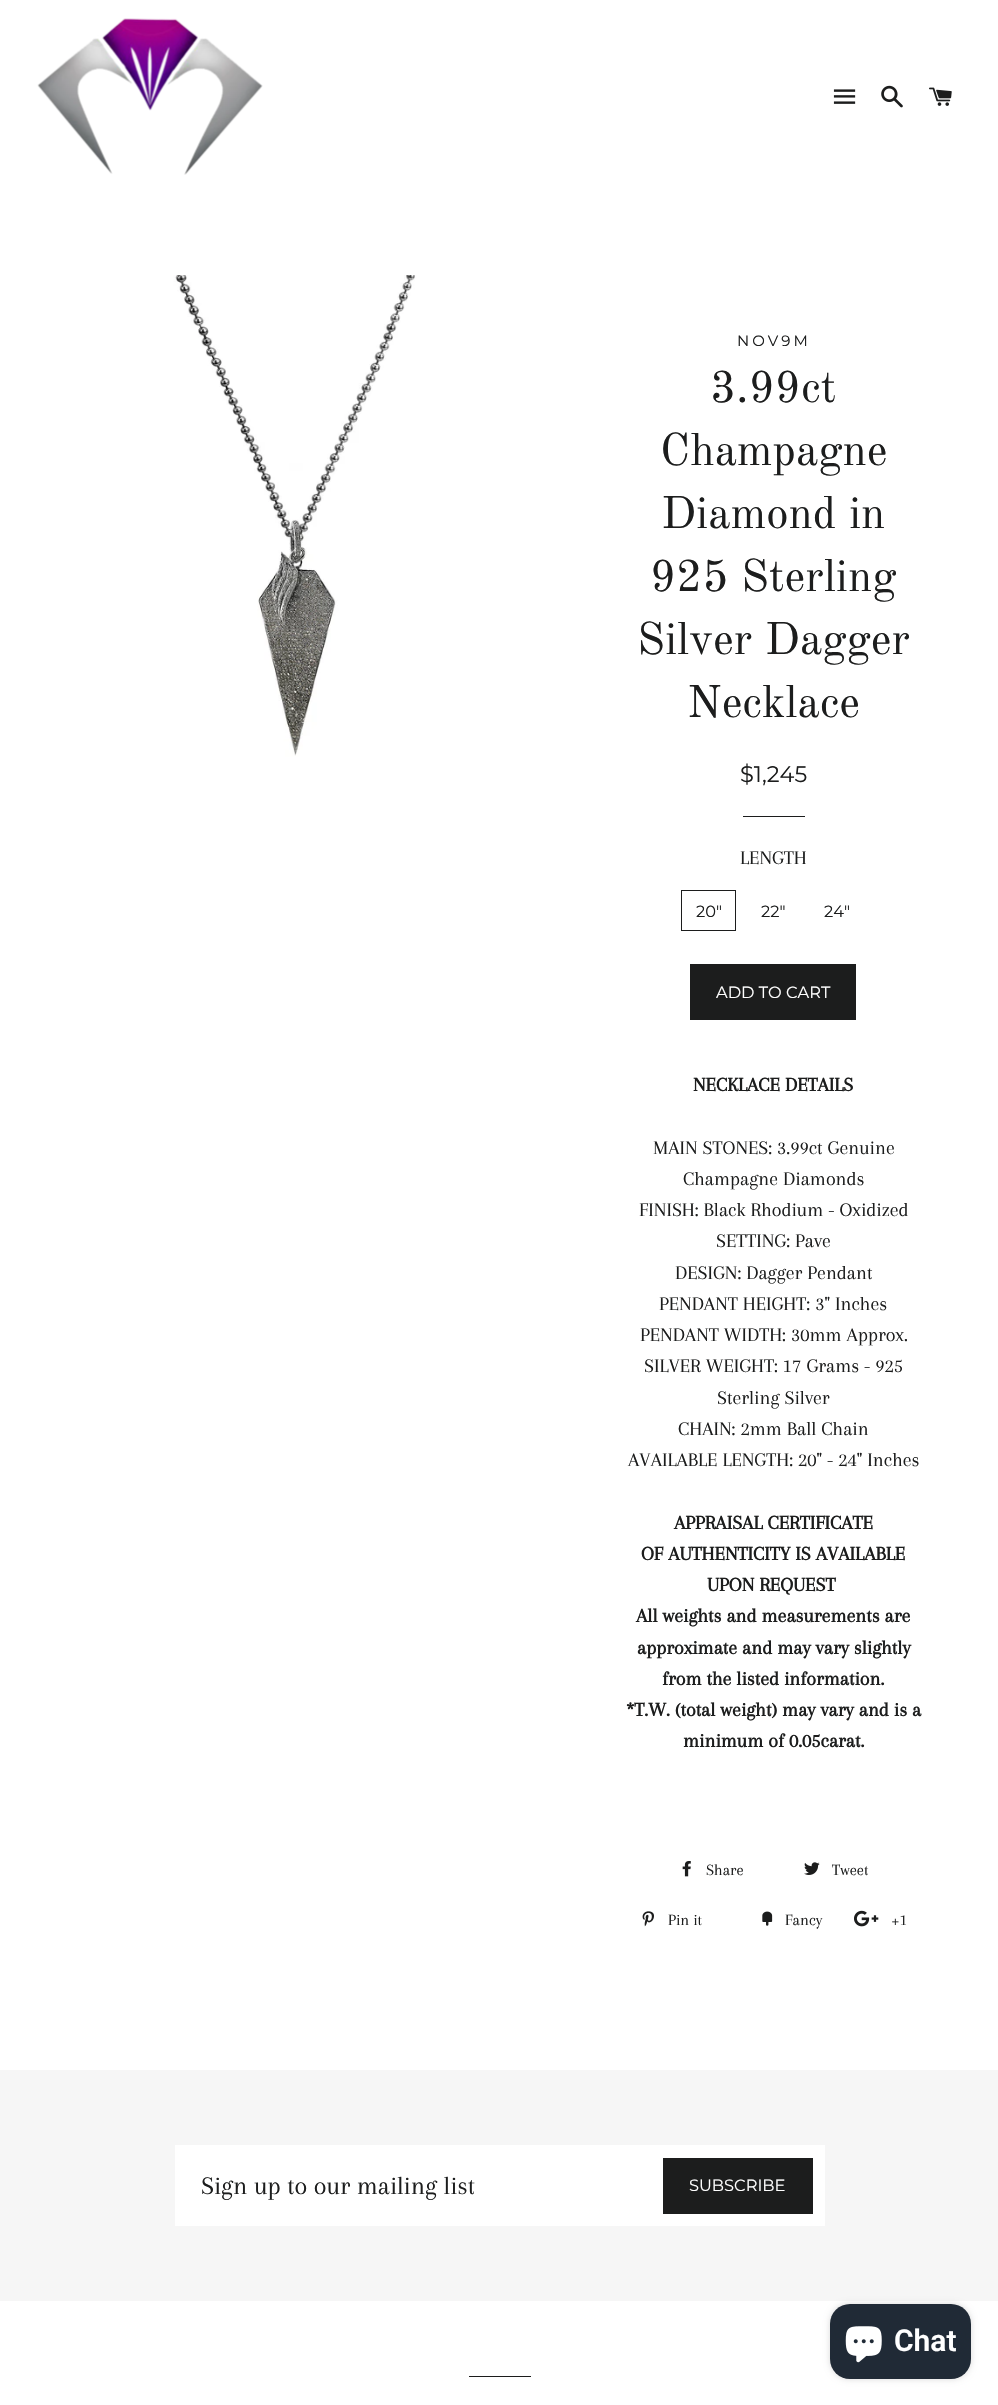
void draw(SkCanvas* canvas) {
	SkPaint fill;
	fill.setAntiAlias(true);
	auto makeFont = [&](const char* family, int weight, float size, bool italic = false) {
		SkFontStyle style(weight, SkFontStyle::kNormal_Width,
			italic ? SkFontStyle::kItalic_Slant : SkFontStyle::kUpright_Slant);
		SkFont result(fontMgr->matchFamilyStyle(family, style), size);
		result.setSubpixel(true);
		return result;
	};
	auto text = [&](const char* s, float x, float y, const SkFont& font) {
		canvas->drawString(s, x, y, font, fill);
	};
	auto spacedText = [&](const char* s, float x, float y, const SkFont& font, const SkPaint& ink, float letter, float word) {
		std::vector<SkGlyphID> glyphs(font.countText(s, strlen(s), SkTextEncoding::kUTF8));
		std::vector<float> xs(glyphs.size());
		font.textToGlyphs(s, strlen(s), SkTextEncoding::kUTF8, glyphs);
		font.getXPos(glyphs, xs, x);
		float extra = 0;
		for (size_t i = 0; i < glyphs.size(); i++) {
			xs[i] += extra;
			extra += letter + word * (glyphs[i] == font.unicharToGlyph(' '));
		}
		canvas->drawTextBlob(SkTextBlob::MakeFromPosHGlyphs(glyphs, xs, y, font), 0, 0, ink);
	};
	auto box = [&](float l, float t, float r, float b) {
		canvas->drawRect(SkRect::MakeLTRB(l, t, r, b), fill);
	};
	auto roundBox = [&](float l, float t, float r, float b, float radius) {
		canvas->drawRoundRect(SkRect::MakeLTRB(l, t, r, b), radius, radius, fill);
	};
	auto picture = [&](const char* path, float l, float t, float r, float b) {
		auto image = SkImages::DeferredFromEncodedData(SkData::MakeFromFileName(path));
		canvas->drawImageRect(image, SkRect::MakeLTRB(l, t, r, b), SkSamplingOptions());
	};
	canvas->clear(0xFFFFFFFF);
	picture("image0.png", 37, 18, 263, 175);
	picture("image1.png", 833, 89, 856, 104);
	picture("image2.png", 881, 85, 903, 108);
	picture("image3.png", 929, 87, 952, 106);
	picture("image4.png", 38, 275, 561, 799);
	fill.setColor(0xFF1C1D1D);
	box(743, 816, 805, 817);
	fill.setStyle(SkPaint::kStroke_Style);
	fill.setStrokeWidth(1);
	canvas->drawRect(SkRect::MakeLTRB(681.5f, 890.5f, 735.5f, 930.5f), fill);
	fill.setStyle(SkPaint::kFill_Style);
	box(690, 964, 856, 1020);
	picture("image5.png", 682, 1861, 691, 1877);
	picture("image6.png", 804, 1862, 820, 1875);
	picture("image7.png", 642, 1911, 654, 1927);
	picture("image8.png", 762, 1911, 773, 1926);
	picture("image9.png", 854, 1910, 879, 1927);
	fill.setColor(0xFFF6F6F6);
	box(0, 2070, 998, 2301);
	fill.setColor(0xFFFFFFFF);
	box(175, 2145, 825, 2226);
	fill.setColor(0xFF1C1D1D);
	box(663, 2158, 813, 2214);
	box(469, 2376, 531, 2377);
	fill.setColor(0x26000000);
	fill.setMaskFilter(SkMaskFilter::MakeBlur(kNormal_SkBlurStyle, 3));
	canvas->drawRoundRect(SkRect::MakeLTRB(830, 2304, 971, 2379), 20, 20, fill);
	fill.setMaskFilter(nullptr);
	fill.setColor(0xFF202A36);
	roundBox(830, 2304, 971, 2379, 20);
	picture("image10.png", 845, 2326, 882, 2363);
	auto font1 = makeFont("Montserrat", 100, 15);
	fill.setColor(0xFF1C1D1D);
	spacedText("NOV9M", 737, 346, font1, fill, 3, 0);
	auto font2 = makeFont("Old Standard TT", 400, 45);
	text("3.99ct", 710, 402, font2);
	text("Champagne", 660, 465, font2);
	text("Diamond in", 661, 528, font2);
	text("925 Sterling", 650, 591, font2);
	text("Silver Dagger", 637, 654, font2);
	text("Necklace", 687, 717, font2);
	auto font3 = makeFont("Montserrat", 100, 22.5f);
	text("$1,245", 740, 782, font3);
	auto font4 = makeFont("Arapey", 400, 20);
	text("LENGTH", 740, 864, font4);
	auto font5 = makeFont("Montserrat", 100, 16.25f);
	text("20\"", 696, 917, font5);
	text("22\"", 761, 917, font5);
	text("24\"", 824, 917, font5);
	fill.setColor(0xFFFFFFFF);
	text("ADD TO CART", 716, 998, font5);
	auto font6 = makeFont("Arapey", 700, 20);
	fill.setColor(0xFF1C1D1D);
	text("NECKLACE DETAILS", 693, 1091, font6);
	text("MAIN STONES: 3.99ct Genuine", 653, 1154, font4);
	text("Champagne Diamonds", 683, 1185, font4);
	text("FINISH: Black Rhodium - Oxidized", 639, 1216, font4);
	text("SETTING: Pave", 716, 1247, font4);
	text("DESIGN: Dagger Pendant", 675, 1279, font4);
	text("PENDANT HEIGHT: 3\" Inches", 659, 1310, font4);
	text("PENDANT WIDTH: 30mm Approx.", 640, 1341, font4);
	text("SILVER WEIGHT: 17 Grams - 925", 644, 1372, font4);
	text("Sterling Silver", 717, 1404, font4);
	text("CHAIN: 2mm Ball Chain", 678, 1435, font4);
	text("AVAILABLE LENGTH: 20\" - 24\" Inches", 628, 1466, font4);
	text("APPRAISAL CERTIFICATE", 674, 1529, font6);
	text("OF AUTHENTICITY IS AVAILABLE", 641, 1560, font6);
	text("UPON REQUEST", 707, 1591, font6);
	text("All weights and measurements are", 636, 1622, font6);
	text("approximate and may vary slightly", 637, 1654, font6);
	text("from the listed information.", 662, 1685, font6);
	text("*T.W. (total weight) may vary and is a", 626, 1716, font6);
	text("minimum of 0.05carat.", 683, 1747, font6);
	auto font7 = makeFont("Arapey", 400, 16.25f);
	text("Share", 706, 1875, font7);
	text("Tweet", 832, 1875, font7);
	text("Pin it", 668, 1925, font7);
	text("Fancy", 785, 1925, font7);
	text("+1", 891, 1925, font7);
	auto font8 = makeFont("Arapey", 400, 26.25f);
	text("Sign up to our mailing list", 201, 2194, font8);
	fill.setColor(0xFFFFFFFF);
	text("SUBSCRIBE", 689, 2191, font5);
	auto font9 = makeFont("Roboto", 600, 30);
	text("Chat", 894, 2351, font9);
}
